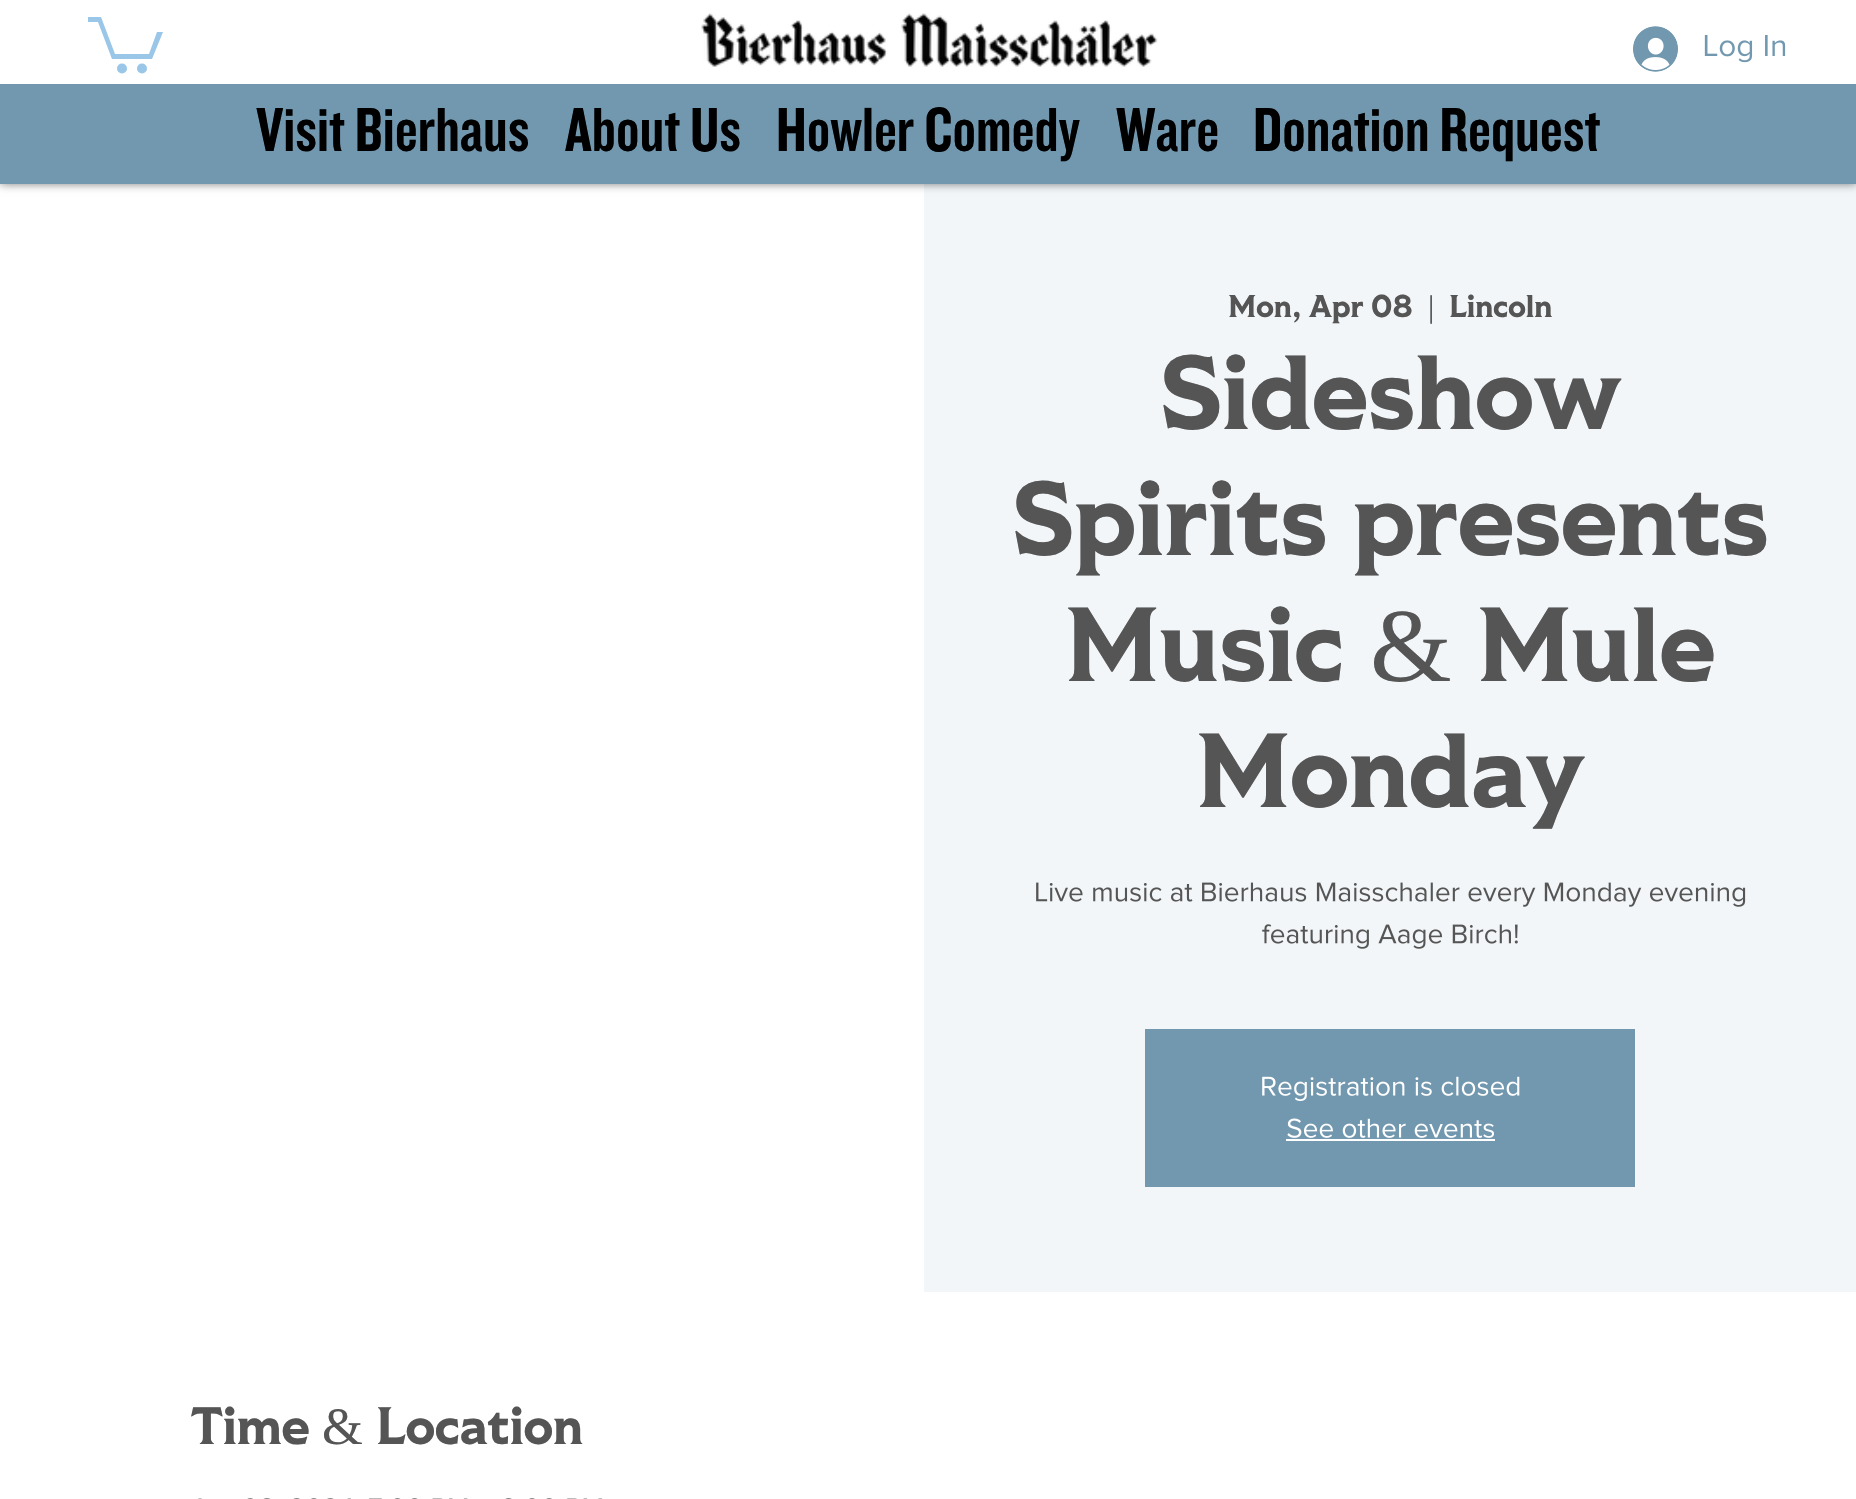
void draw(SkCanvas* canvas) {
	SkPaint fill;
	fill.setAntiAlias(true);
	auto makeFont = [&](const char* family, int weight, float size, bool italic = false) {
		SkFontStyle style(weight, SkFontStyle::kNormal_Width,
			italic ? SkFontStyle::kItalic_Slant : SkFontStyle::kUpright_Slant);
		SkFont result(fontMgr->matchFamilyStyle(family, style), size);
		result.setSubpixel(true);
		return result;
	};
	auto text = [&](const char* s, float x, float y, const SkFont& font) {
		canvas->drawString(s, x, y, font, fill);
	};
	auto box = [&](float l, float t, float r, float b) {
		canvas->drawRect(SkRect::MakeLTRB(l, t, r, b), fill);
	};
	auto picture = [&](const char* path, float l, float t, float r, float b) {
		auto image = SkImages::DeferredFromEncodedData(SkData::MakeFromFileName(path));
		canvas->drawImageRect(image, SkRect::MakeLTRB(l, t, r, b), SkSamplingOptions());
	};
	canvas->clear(0xFFFFFFFF);
	fill.setColor(0xFFF2F6F8);
	box(924, 184, 1856, 1292);
	fill.setColor(0x80000000);
	fill.setMaskFilter(SkMaskFilter::MakeBlur(kNormal_SkBlurStyle, 4.5f));
	canvas->drawRect(SkRect::MakeLTRB(0, 0, 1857, 184), fill);
	fill.setMaskFilter(nullptr);
	fill.setColor(0xFF7298B0);
	box(0, 84, 1856, 184);
	fill.setColor(0xFFFFFFFF);
	box(0, 0, 1856, 84);
	fill.setColor(0xFF9AC6E7);
	canvas->drawPath(SkPathBuilder().moveTo(163, 32).lineTo(152, 59).lineTo(112, 59).lineTo(98, 22).lineTo(88, 22).lineTo(88, 17).lineTo(101, 17).lineTo(115, 54).lineTo(149, 54).lineTo(157, 32).detach(), fill);
	canvas->drawCircle(142, 68.5f, 5, fill);
	canvas->drawCircle(122, 68.5f, 5, fill);
	picture("image0.png", 701, 13, 1158, 67);
	picture("image1.png", 1633, 26, 1678, 72);
	picture("image2.png", 1704, 35, 1786, 63);
	picture("image3.png", 1036, 882, 1746, 907);
	picture("image4.png", 1262, 924, 1518, 949);
	fill.setColor(0xFF7298B0);
	box(1145, 1029, 1635, 1187);
	picture("image5.png", 1262, 1076, 1520, 1101);
	picture("image6.png", 1287, 1118, 1494, 1138);
	fill.setColor(0xFFFFFFFF);
	box(1286, 1139, 1495, 1141);
	picture("image7.png", 198, 1498, 602, 1499);
	auto font1 = makeFont("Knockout", 400, 64.75f);
	fill.setColor(0xFF000000);
	text("Visit Bierhaus", 256, 151, font1);
	text("About Us", 565, 151, font1);
	text("Howler Comedy", 776, 151, font1);
	text("Ware", 1116, 151, font1);
	text("Donation Request", 1253, 151, font1);
	auto font2 = makeFont("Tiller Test", 700, 31.5f);
	fill.setColor(0xFF555555);
	text("Mon, Apr 08", 1228, 317, font2);
	auto font3 = makeFont("Liberation Serif", 400, 31.5f);
	text("|", 1428, 317, font3);
	text("Lincoln", 1449, 317, font2);
	auto font4 = makeFont("Tiller Test", 700, 105);
	text("Sideshow", 1160, 429, font4);
	text("Spirits presents", 1012, 555, font4);
	text("Music", 1065, 681, font4);
	auto font5 = makeFont("Liberation Serif", 400, 105);
	text("&", 1370, 681, font5);
	text("Mule", 1477, 681, font4);
	text("Monday", 1196, 807, font4);
	auto font6 = makeFont("Tiller Test", 700, 52.5f);
	text("Time", 191, 1444, font6);
	auto font7 = makeFont("Liberation Serif", 400, 52.5f);
	text("&", 322, 1444, font7);
	text("Location", 376, 1444, font6);
}
